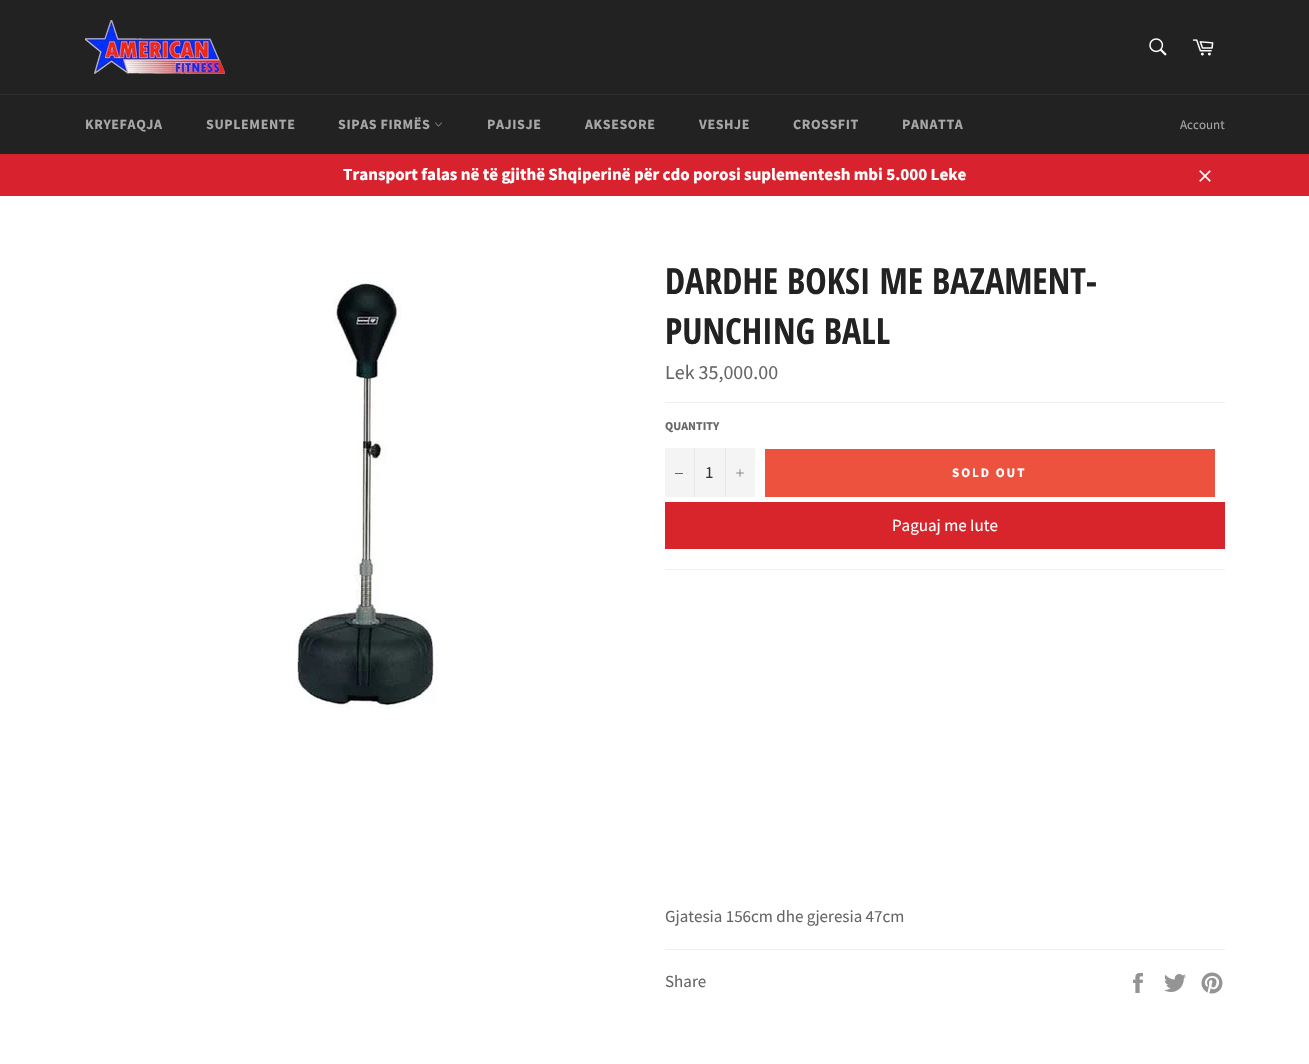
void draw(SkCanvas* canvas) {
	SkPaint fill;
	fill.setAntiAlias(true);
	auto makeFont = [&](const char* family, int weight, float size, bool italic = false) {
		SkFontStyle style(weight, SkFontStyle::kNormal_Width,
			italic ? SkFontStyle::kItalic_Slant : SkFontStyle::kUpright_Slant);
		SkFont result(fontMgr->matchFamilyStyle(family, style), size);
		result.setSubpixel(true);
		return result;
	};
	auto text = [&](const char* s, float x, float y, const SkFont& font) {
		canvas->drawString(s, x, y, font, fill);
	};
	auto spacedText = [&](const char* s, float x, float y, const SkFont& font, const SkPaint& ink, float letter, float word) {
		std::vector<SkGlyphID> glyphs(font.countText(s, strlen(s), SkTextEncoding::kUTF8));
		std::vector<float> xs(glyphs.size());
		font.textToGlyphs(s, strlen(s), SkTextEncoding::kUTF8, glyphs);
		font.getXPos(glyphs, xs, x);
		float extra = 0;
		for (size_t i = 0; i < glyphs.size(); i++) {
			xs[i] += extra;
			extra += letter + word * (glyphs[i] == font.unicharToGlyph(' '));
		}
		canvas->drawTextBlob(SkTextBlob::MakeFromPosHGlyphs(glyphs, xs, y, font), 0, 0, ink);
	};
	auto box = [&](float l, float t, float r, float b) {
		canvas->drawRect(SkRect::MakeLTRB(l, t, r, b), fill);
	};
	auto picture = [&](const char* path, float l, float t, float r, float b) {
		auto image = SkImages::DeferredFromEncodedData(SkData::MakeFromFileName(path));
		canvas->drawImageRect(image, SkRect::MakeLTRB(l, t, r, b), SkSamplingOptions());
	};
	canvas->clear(0xFF222222);
	picture("image0.png", 85, 20, 225, 74);
	picture("image1.png", 1149, 38, 1167, 56);
	picture("image2.png", 1192, 39, 1214, 56);
	fill.setColor(0xFF2F2F2F);
	box(0, 94, 1309, 95);
	picture("image3.png", 435, 122, 442, 127);
	fill.setColor(0xFFD8232F);
	box(0, 154, 1309, 196);
	picture("image4.png", 1199, 170, 1211, 182);
	fill.setColor(0xFFFFFFFF);
	box(0, 196, 1309, 1064);
	picture("image5.png", 295, 280, 440, 710);
	fill.setColor(0xFFF0F0F0);
	box(665, 402, 1225, 403);
	fill.setColor(0xFFF4F4F4);
	box(665, 448, 755, 497);
	fill.setColor(0xFFE7E7E7);
	box(694, 448, 695, 497);
	fill.setColor(0xFF666666);
	box(675, 473, 683, 474);
	fill.setColor(0xFFE7E7E7);
	box(725, 448, 726, 497);
	picture("image6.png", 736, 469, 744, 477);
	fill.setColor(0xFFEC523E);
	box(765, 449, 1215, 497);
	fill.setColor(0xFFD8252C);
	box(665, 502, 1225, 549);
	fill.setColor(0xFFF0F0F0);
	box(665, 569, 1225, 570);
	box(665, 949, 1225, 950);
	picture("image7.png", 1133, 973, 1143, 993);
	picture("image8.png", 1164, 974, 1186, 992);
	picture("image9.png", 1201, 972, 1223, 994);
	auto font1 = makeFont("Source Sans Pro", 700, 14);
	fill.setColor(0xFFA7A7A7);
	spacedText("KRYEFAQJA", 85, 129, font1, fill, 0.6f, 0);
	spacedText("SUPLEMENTE", 206, 129, font1, fill, 0.6f, 0);
	spacedText("SIPAS FIRMËS", 338, 129, font1, fill, 0.6f, 0);
	spacedText("PAJISJE", 487, 129, font1, fill, 0.6f, 0);
	spacedText("AKSESORE", 585, 129, font1, fill, 0.6f, 0);
	spacedText("VESHJE", 699, 129, font1, fill, 0.6f, 0);
	spacedText("CROSSFIT", 793, 129, font1, fill, 0.6f, 0);
	spacedText("PANATTA", 902, 129, font1, fill, 0.6f, 0);
	auto font2 = makeFont("Source Sans Pro", 400, 13);
	text("Account", 1180, 129, font2);
	auto font3 = makeFont("Source Sans Pro", 700, 17);
	fill.setColor(0xFFFFFFFF);
	text("Transport falas në të gjithë Shqiperinë për cdo porosi suplementesh mbi 5.000 Leke", 343, 180, font3);
	auto font4 = makeFont("Open Sans Condensed", 700, 36);
	fill.setColor(0xFF222222);
	text("DARDHE BOKSI ME BAZAMENT-", 665, 294, font4);
	text("PUNCHING BALL", 665, 344, font4);
	auto font5 = makeFont("Source Sans Pro", 400, 20);
	fill.setColor(0xFF666666);
	text("Lek 35,000.00", 665, 379, font5);
	auto font6 = makeFont("Source Sans Pro", 700, 12);
	text("QUANTITY", 665, 430, font6);
	auto font7 = makeFont("Source Sans Pro", 400, 17);
	fill.setColor(0xFF333333);
	text("1", 705, 478, font7);
	auto font8 = makeFont("Source Sans Pro", 700, 13);
	fill.setColor(0xFFFFFFFF);
	spacedText("SOLD OUT", 952, 477, font8, fill, 2, 0);
	text("Paguaj me Iute", 892, 531, font7);
	fill.setColor(0xFF666666);
	text("Gjatesia 156cm dhe gjeresia 47cm", 665, 922, font7);
	text("Share", 665, 987, font7);
}
